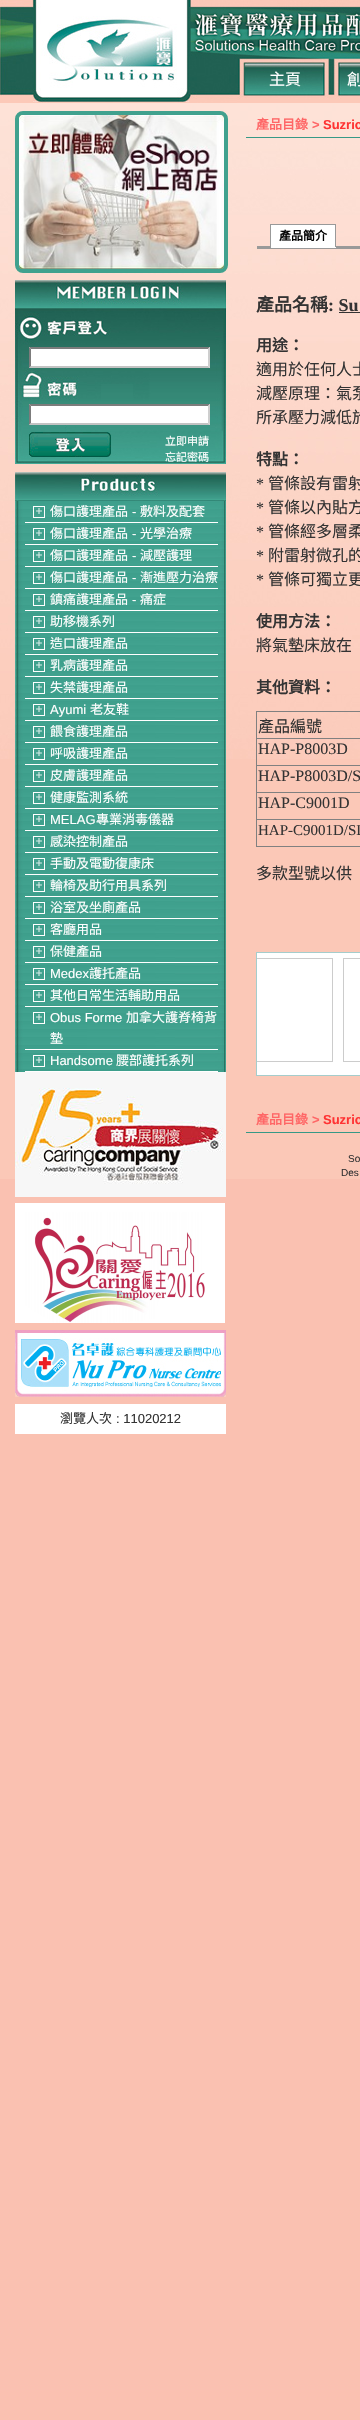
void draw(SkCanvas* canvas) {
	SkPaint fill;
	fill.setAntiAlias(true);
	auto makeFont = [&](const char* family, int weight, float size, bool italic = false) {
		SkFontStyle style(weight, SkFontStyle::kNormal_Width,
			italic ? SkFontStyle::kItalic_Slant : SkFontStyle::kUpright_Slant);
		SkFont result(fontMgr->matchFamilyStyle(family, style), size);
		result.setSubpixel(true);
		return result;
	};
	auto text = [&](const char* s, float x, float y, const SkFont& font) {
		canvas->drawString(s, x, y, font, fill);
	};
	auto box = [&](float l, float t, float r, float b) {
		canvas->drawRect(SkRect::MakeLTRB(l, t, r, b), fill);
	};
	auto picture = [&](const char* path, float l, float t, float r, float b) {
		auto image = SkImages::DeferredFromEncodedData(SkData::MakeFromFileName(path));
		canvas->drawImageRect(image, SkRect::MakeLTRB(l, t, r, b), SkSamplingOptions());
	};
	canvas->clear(0xFFFAC1B1);
	picture("image0.png", 0, 0, 33, 103);
	picture("image1.png", 33, 0, 189, 103);
	picture("image2.png", 189, 0, 360, 59);
	picture("image3.png", 189, 59, 240, 103);
	picture("image4.png", 240, 59, 329, 103);
	picture("image5.png", 329, 59, 334, 103);
	picture("image6.png", 334, 59, 360, 103);
	fill.setColor(0xFFFBC8B7);
	box(0, 759, 360, 1179);
	picture("image7.png", 0, 103, 360, 759);
	fill.setStyle(SkPaint::kStroke_Style);
	fill.setStrokeWidth(4);
	fill.setColor(0xFF40A18E);
	canvas->drawRoundRect(SkRect::MakeLTRB(17, 113, 226, 271), 6, 6, fill);
	picture("image8.png", 19, 115, 224, 269);
	picture("image9.png", 15, 280, 226, 464);
	fill.setStyle(SkPaint::kFill_Style);
	fill.setColor(0xFFFFFFFF);
	box(29, 347, 210, 368);
	fill.setColor(0xFF7C7C7C);
	canvas->drawPath(SkPathBuilder().moveTo(29, 347).lineTo(210, 347).lineTo(208, 349).lineTo(31, 349).close().detach(), fill);
	fill.setColor(0xFFCECECE);
	canvas->drawPath(SkPathBuilder().moveTo(210, 347).lineTo(210, 368).lineTo(208, 366).lineTo(208, 349).close().detach(), fill);
	fill.setColor(0xFFC3C3C3);
	canvas->drawPath(SkPathBuilder().moveTo(210, 368).lineTo(29, 368).lineTo(31, 366).lineTo(208, 366).close().detach(), fill);
	fill.setColor(0xFF7C7C7C);
	canvas->drawPath(SkPathBuilder().moveTo(29, 368).lineTo(29, 347).lineTo(31, 349).lineTo(31, 366).close().detach(), fill);
	fill.setColor(0xFFFFFFFF);
	box(29, 404, 210, 425);
	fill.setColor(0xFF7C7C7C);
	canvas->drawPath(SkPathBuilder().moveTo(29, 404).lineTo(210, 404).lineTo(208, 406).lineTo(31, 406).close().detach(), fill);
	fill.setColor(0xFFCECECE);
	canvas->drawPath(SkPathBuilder().moveTo(210, 404).lineTo(210, 425).lineTo(208, 423).lineTo(208, 406).close().detach(), fill);
	fill.setColor(0xFFC3C3C3);
	canvas->drawPath(SkPathBuilder().moveTo(210, 425).lineTo(29, 425).lineTo(31, 423).lineTo(208, 423).close().detach(), fill);
	fill.setColor(0xFF7C7C7C);
	canvas->drawPath(SkPathBuilder().moveTo(29, 425).lineTo(29, 404).lineTo(31, 406).lineTo(31, 423).close().detach(), fill);
	picture("image10.png", 29, 432, 111, 457);
	picture("image11.png", 15, 472, 226, 501);
	picture("image12.png", 15, 501, 226, 1072);
	fill.setColor(0xFFFFFFFF);
	box(25, 522, 218, 523);
	fill.setStyle(SkPaint::kStroke_Style);
	fill.setStrokeWidth(1);
	canvas->drawRect(SkRect::MakeLTRB(33.5f, 506.5f, 44.5f, 517.5f), fill);
	fill.setStyle(SkPaint::kFill_Style);
	box(25, 544, 218, 545);
	fill.setStyle(SkPaint::kStroke_Style);
	canvas->drawRect(SkRect::MakeLTRB(33.5f, 528.5f, 44.5f, 539.5f), fill);
	fill.setStyle(SkPaint::kFill_Style);
	box(25, 566, 218, 567);
	fill.setStyle(SkPaint::kStroke_Style);
	canvas->drawRect(SkRect::MakeLTRB(33.5f, 550.5f, 44.5f, 561.5f), fill);
	fill.setStyle(SkPaint::kFill_Style);
	box(25, 588, 218, 589);
	fill.setStyle(SkPaint::kStroke_Style);
	canvas->drawRect(SkRect::MakeLTRB(33.5f, 572.5f, 44.5f, 583.5f), fill);
	fill.setStyle(SkPaint::kFill_Style);
	box(25, 610, 218, 611);
	fill.setStyle(SkPaint::kStroke_Style);
	canvas->drawRect(SkRect::MakeLTRB(33.5f, 594.5f, 44.5f, 605.5f), fill);
	fill.setStyle(SkPaint::kFill_Style);
	box(25, 632, 218, 633);
	fill.setStyle(SkPaint::kStroke_Style);
	canvas->drawRect(SkRect::MakeLTRB(33.5f, 616.5f, 44.5f, 627.5f), fill);
	fill.setStyle(SkPaint::kFill_Style);
	box(25, 654, 218, 655);
	fill.setStyle(SkPaint::kStroke_Style);
	canvas->drawRect(SkRect::MakeLTRB(33.5f, 638.5f, 44.5f, 649.5f), fill);
	fill.setStyle(SkPaint::kFill_Style);
	box(25, 676, 218, 677);
	fill.setStyle(SkPaint::kStroke_Style);
	canvas->drawRect(SkRect::MakeLTRB(33.5f, 660.5f, 44.5f, 671.5f), fill);
	fill.setStyle(SkPaint::kFill_Style);
	box(25, 698, 218, 699);
	fill.setStyle(SkPaint::kStroke_Style);
	canvas->drawRect(SkRect::MakeLTRB(33.5f, 682.5f, 44.5f, 693.5f), fill);
	fill.setStyle(SkPaint::kFill_Style);
	box(25, 720, 218, 721);
	fill.setStyle(SkPaint::kStroke_Style);
	canvas->drawRect(SkRect::MakeLTRB(33.5f, 704.5f, 44.5f, 715.5f), fill);
	fill.setStyle(SkPaint::kFill_Style);
	box(25, 742, 218, 743);
	fill.setStyle(SkPaint::kStroke_Style);
	canvas->drawRect(SkRect::MakeLTRB(33.5f, 726.5f, 44.5f, 737.5f), fill);
	fill.setStyle(SkPaint::kFill_Style);
	box(25, 764, 218, 765);
	fill.setStyle(SkPaint::kStroke_Style);
	canvas->drawRect(SkRect::MakeLTRB(33.5f, 748.5f, 44.5f, 759.5f), fill);
	fill.setStyle(SkPaint::kFill_Style);
	box(25, 786, 218, 787);
	fill.setStyle(SkPaint::kStroke_Style);
	canvas->drawRect(SkRect::MakeLTRB(33.5f, 770.5f, 44.5f, 781.5f), fill);
	fill.setStyle(SkPaint::kFill_Style);
	box(25, 808, 218, 809);
	fill.setStyle(SkPaint::kStroke_Style);
	canvas->drawRect(SkRect::MakeLTRB(33.5f, 792.5f, 44.5f, 803.5f), fill);
	fill.setStyle(SkPaint::kFill_Style);
	box(25, 830, 218, 831);
	fill.setStyle(SkPaint::kStroke_Style);
	canvas->drawRect(SkRect::MakeLTRB(33.5f, 814.5f, 44.5f, 825.5f), fill);
	fill.setStyle(SkPaint::kFill_Style);
	box(25, 852, 218, 853);
	fill.setStyle(SkPaint::kStroke_Style);
	canvas->drawRect(SkRect::MakeLTRB(33.5f, 836.5f, 44.5f, 847.5f), fill);
	fill.setStyle(SkPaint::kFill_Style);
	box(25, 874, 218, 875);
	fill.setStyle(SkPaint::kStroke_Style);
	canvas->drawRect(SkRect::MakeLTRB(33.5f, 858.5f, 44.5f, 869.5f), fill);
	fill.setStyle(SkPaint::kFill_Style);
	box(25, 896, 218, 897);
	fill.setStyle(SkPaint::kStroke_Style);
	canvas->drawRect(SkRect::MakeLTRB(33.5f, 880.5f, 44.5f, 891.5f), fill);
	fill.setStyle(SkPaint::kFill_Style);
	box(25, 918, 218, 919);
	fill.setStyle(SkPaint::kStroke_Style);
	canvas->drawRect(SkRect::MakeLTRB(33.5f, 902.5f, 44.5f, 913.5f), fill);
	fill.setStyle(SkPaint::kFill_Style);
	box(25, 940, 218, 941);
	fill.setStyle(SkPaint::kStroke_Style);
	canvas->drawRect(SkRect::MakeLTRB(33.5f, 924.5f, 44.5f, 935.5f), fill);
	fill.setStyle(SkPaint::kFill_Style);
	box(25, 962, 218, 963);
	fill.setStyle(SkPaint::kStroke_Style);
	canvas->drawRect(SkRect::MakeLTRB(33.5f, 946.5f, 44.5f, 957.5f), fill);
	fill.setStyle(SkPaint::kFill_Style);
	box(25, 984, 218, 985);
	fill.setStyle(SkPaint::kStroke_Style);
	canvas->drawRect(SkRect::MakeLTRB(33.5f, 968.5f, 44.5f, 979.5f), fill);
	fill.setStyle(SkPaint::kFill_Style);
	box(25, 1006, 218, 1007);
	fill.setStyle(SkPaint::kStroke_Style);
	canvas->drawRect(SkRect::MakeLTRB(33.5f, 990.5f, 44.5f, 1001.5f), fill);
	fill.setStyle(SkPaint::kFill_Style);
	box(25, 1049, 218, 1050);
	fill.setStyle(SkPaint::kStroke_Style);
	canvas->drawRect(SkRect::MakeLTRB(33.5f, 1012.5f, 44.5f, 1023.5f), fill);
	fill.setStyle(SkPaint::kFill_Style);
	box(25, 1071, 218, 1072);
	fill.setStyle(SkPaint::kStroke_Style);
	canvas->drawRect(SkRect::MakeLTRB(33.5f, 1055.5f, 44.5f, 1066.5f), fill);
	picture("image13.png", 15, 1072, 226, 1197);
	picture("image14.png", 15, 1203, 225, 1323);
	picture("image15.png", 15, 1330, 226, 1397);
	fill.setStyle(SkPaint::kFill_Style);
	box(15, 1404, 226, 1434);
	fill.setColor(0xFF369986);
	box(246, 137, 360, 138);
	fill.setColor(0xFF999999);
	box(257, 246, 360, 249);
	fill.setColor(0xFFFFFFFF);
	box(271, 225, 335, 247);
	fill.setColor(0xFF999999);
	box(270, 224, 336, 225);
	box(335, 224, 336, 248);
	fill.setColor(0xFFFFFFFF);
	box(270, 247, 336, 248);
	fill.setColor(0xFF999999);
	box(270, 224, 271, 248);
	fill.setColor(0xFF333333);
	box(339, 312, 360, 313);
	fill.setColor(0xFF808080);
	box(256, 711, 360, 712);
	box(256, 846, 360, 847);
	box(256, 711, 257, 847);
	box(256, 738, 360, 739);
	box(256, 765, 360, 766);
	box(256, 792, 360, 793);
	box(256, 819, 360, 820);
	fill.setColor(0xFFFFFFFF);
	canvas->drawRect(SkRect::MakeLTRB(256.5f, 952.5f, 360.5f, 1075.5f), fill);
	fill.setStyle(SkPaint::kStroke_Style);
	fill.setColor(0xFFA5CDCC);
	canvas->drawRect(SkRect::MakeLTRB(256.5f, 952.5f, 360.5f, 1075.5f), fill);
	canvas->save();
	canvas->clipRect(SkRect::MakeLTRB(257, 953, 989, 1075));
	fill.setColor(0xFFCCCCCC);
	canvas->drawRect(SkRect::MakeLTRB(229.5f, 958.5f, 332.5f, 1061.5f), fill);
	canvas->restore();
	canvas->drawRect(SkRect::MakeLTRB(343.5f, 958.5f, 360.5f, 1061.5f), fill);
	fill.setStyle(SkPaint::kFill_Style);
	fill.setColor(0xFF369986);
	box(246, 1132, 360, 1133);
	auto font1 = makeFont("Noto Sans CJK TC", 400, 16);
	fill.setColor(0xFFFFFFFF);
	text("主頁", 269, 85, font1);
	text("創", 347, 85, font1);
	auto font2 = makeFont("Noto Sans CJK TC", 400, 11);
	text("立即申請", 165, 445, font2);
	text("忘記密碼", 165, 461, font2);
	auto font3 = makeFont("Noto Sans CJK TC", 400, 8);
	text("＋", 35, 514, font3);
	auto font4 = makeFont("Noto Sans CJK TC", 400, 13);
	text("傷口護理產品", 50, 516, font4);
	auto font5 = makeFont("Liberation Sans", 400, 13);
	text("-", 132, 516, font5);
	text("敷料及配套", 140, 516, font4);
	text("＋", 35, 536, font3);
	text("傷口護理產品", 50, 538, font4);
	text("-", 132, 538, font5);
	text("光學治療", 140, 538, font4);
	text("＋", 35, 558, font3);
	text("傷口護理產品", 50, 560, font4);
	text("-", 132, 560, font5);
	text("減壓護理", 140, 560, font4);
	text("＋", 35, 580, font3);
	text("傷口護理產品", 50, 582, font4);
	text("-", 132, 582, font5);
	text("漸進壓力治療", 140, 582, font4);
	text("＋", 35, 602, font3);
	text("鎮痛護理產品", 50, 604, font4);
	text("-", 132, 604, font5);
	text("痛症", 140, 604, font4);
	text("＋", 35, 624, font3);
	text("助移機系列", 50, 626, font4);
	text("＋", 35, 646, font3);
	text("造口護理產品", 50, 648, font4);
	text("＋", 35, 668, font3);
	text("乳病護理產品", 50, 670, font4);
	text("＋", 35, 690, font3);
	text("失禁護理產品", 50, 692, font4);
	text("＋", 35, 712, font3);
	text("Ayumi", 50, 714, font5);
	text("老友鞋", 90, 714, font4);
	text("＋", 35, 734, font3);
	text("餵食護理產品", 50, 736, font4);
	text("＋", 35, 756, font3);
	text("呼吸護理產品", 50, 758, font4);
	text("＋", 35, 778, font3);
	text("皮膚護理產品", 50, 780, font4);
	text("＋", 35, 800, font3);
	text("健康監測系統", 50, 802, font4);
	text("＋", 35, 822, font3);
	text("MELAG", 50, 824, font5);
	text("專業消毒儀器", 96, 824, font4);
	text("＋", 35, 844, font3);
	text("感染控制產品", 50, 846, font4);
	text("＋", 35, 866, font3);
	text("手動及電動復康床", 50, 868, font4);
	text("＋", 35, 888, font3);
	text("輪椅及助行用具系列", 50, 890, font4);
	text("＋", 35, 910, font3);
	text("浴室及坐廁產品", 50, 912, font4);
	text("＋", 35, 932, font3);
	text("客廳用品", 50, 934, font4);
	text("＋", 35, 954, font3);
	text("保健產品", 50, 956, font4);
	text("＋", 35, 976, font3);
	text("Medex", 50, 978, font5);
	text("護托產品", 89, 978, font4);
	text("＋", 35, 998, font3);
	text("其他日常生活輔助用品", 50, 1000, font4);
	text("＋", 35, 1020, font3);
	text("Obus Forme", 50, 1022, font5);
	text("加拿大護脊椅背", 126, 1022, font4);
	text("墊", 50, 1043, font4);
	text("＋", 35, 1063, font3);
	text("Handsome", 50, 1065, font5);
	text("腰部護托系列", 116, 1065, font4);
	fill.setColor(0xFF333333);
	text("瀏覽人次", 60, 1423, font4);
	text(": 11020212", 116, 1423, font5);
	auto font6 = makeFont("Noto Sans CJK TC", 700, 13);
	fill.setColor(0xFFFF6666);
	text("產品目錄", 256, 129, font6);
	auto font7 = makeFont("Liberation Sans", 700, 13);
	text(">", 312, 129, font7);
	fill.setColor(0xFFFF3333);
	text("Suzric", 323, 129, font7);
	auto font8 = makeFont("Noto Sans CJK TC", 700, 12);
	fill.setColor(0xFF000000);
	text("產品簡介", 279, 240, font8);
	auto font9 = makeFont("Noto Sans CJK TC", 700, 18);
	fill.setColor(0xFF333333);
	text("產品名稱", 256, 311, font9);
	auto font10 = makeFont("Liberation Serif", 700, 18);
	text(": Su", 328, 311, font10);
	auto font11 = makeFont("Noto Sans CJK TC", 700, 16);
	text("用途：", 256, 351, font11);
	text("適用於任何人士", 256, 375, font1);
	text("減壓原理：氣泵", 256, 399, font1);
	text("所承壓力減低於", 256, 423, font1);
	text("特點：", 256, 465, font11);
	auto font12 = makeFont("Liberation Serif", 400, 16);
	text("*", 256, 489, font12);
	text("管條設有雷射", 268, 489, font1);
	text("*", 256, 513, font12);
	text("管條以內貼方", 268, 513, font1);
	text("*", 256, 537, font12);
	text("管條經多層柔", 268, 537, font1);
	text("*", 256, 561, font12);
	text("附雷射微孔的", 268, 561, font1);
	text("*", 256, 585, font12);
	text("管條可獨立更", 268, 585, font1);
	text("使用方法：", 256, 627, font11);
	text("將氣墊床放在", 256, 651, font1);
	text("其他資料：", 256, 693, font11);
	text("產品編號", 258, 732, font1);
	text("HAP-P8003D", 258, 754, font12);
	text("HAP-P8003D/S", 258, 781, font12);
	text("HAP-C9001D", 258, 808, font12);
	auto font13 = makeFont("Liberation Serif", 400, 15);
	text("HAP-C9001D/SL", 258, 835, font13);
	text("多款型號以供", 256, 879, font1);
	fill.setColor(0xFFFF6666);
	text("產品目錄", 256, 1124, font6);
	text(">", 312, 1124, font7);
	fill.setColor(0xFFFF3333);
	text("Suzric", 323, 1124, font7);
	auto font14 = makeFont("Liberation Sans", 400, 10);
	fill.setColor(0xFF333333);
	text("So", 348, 1162, font14);
	text("Des", 341, 1176, font14);
}
